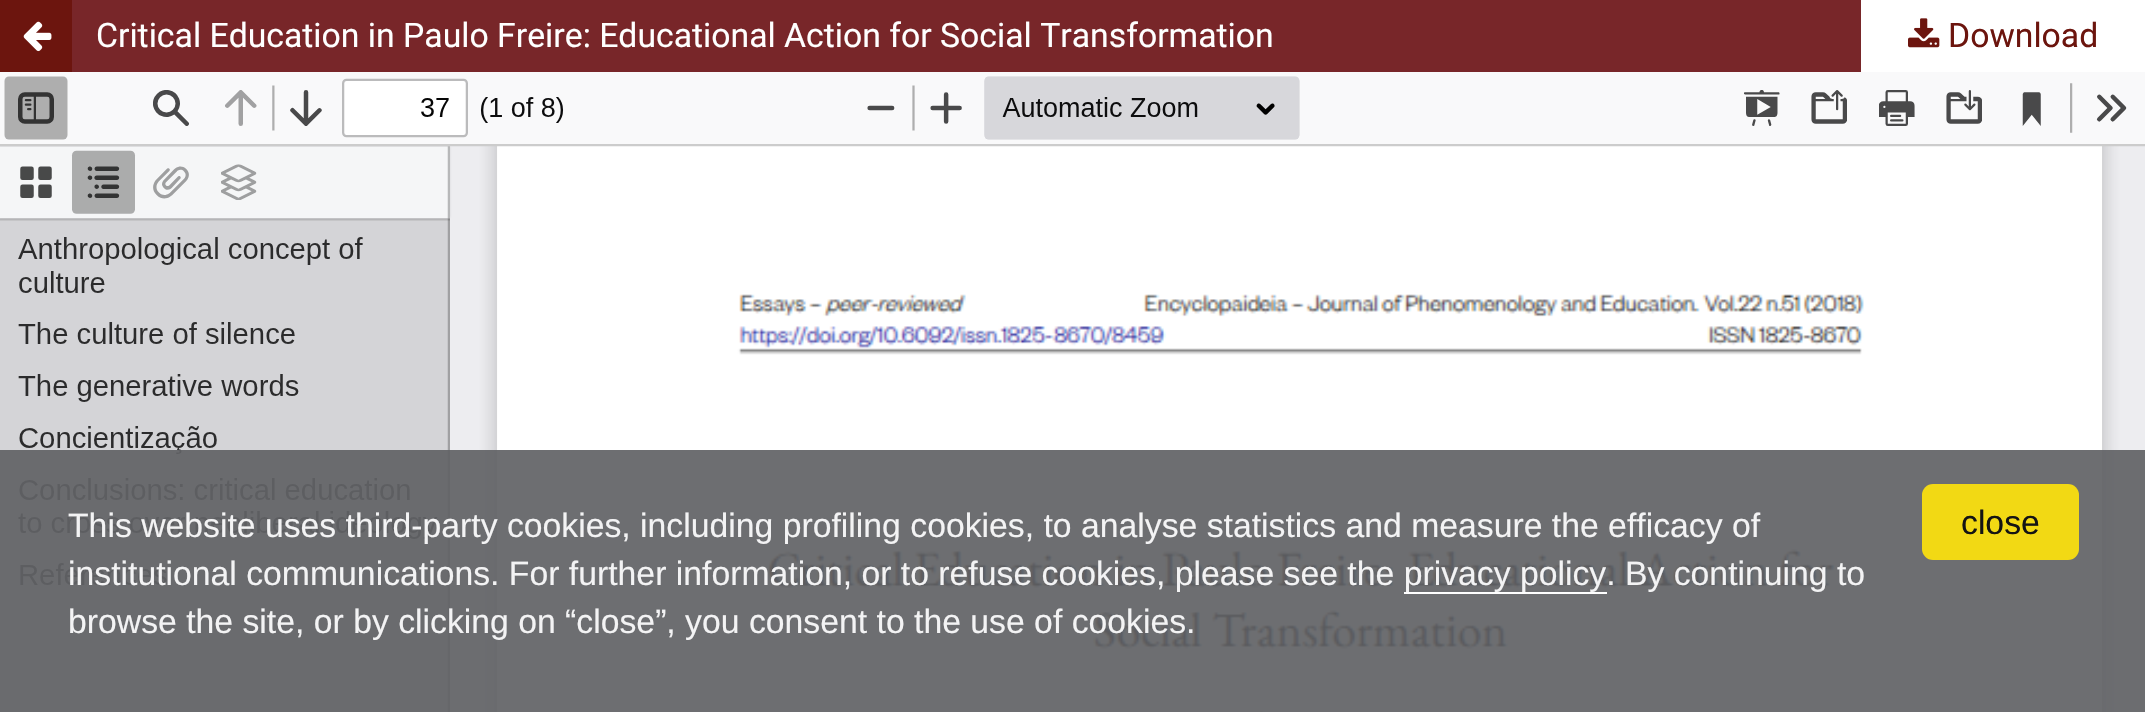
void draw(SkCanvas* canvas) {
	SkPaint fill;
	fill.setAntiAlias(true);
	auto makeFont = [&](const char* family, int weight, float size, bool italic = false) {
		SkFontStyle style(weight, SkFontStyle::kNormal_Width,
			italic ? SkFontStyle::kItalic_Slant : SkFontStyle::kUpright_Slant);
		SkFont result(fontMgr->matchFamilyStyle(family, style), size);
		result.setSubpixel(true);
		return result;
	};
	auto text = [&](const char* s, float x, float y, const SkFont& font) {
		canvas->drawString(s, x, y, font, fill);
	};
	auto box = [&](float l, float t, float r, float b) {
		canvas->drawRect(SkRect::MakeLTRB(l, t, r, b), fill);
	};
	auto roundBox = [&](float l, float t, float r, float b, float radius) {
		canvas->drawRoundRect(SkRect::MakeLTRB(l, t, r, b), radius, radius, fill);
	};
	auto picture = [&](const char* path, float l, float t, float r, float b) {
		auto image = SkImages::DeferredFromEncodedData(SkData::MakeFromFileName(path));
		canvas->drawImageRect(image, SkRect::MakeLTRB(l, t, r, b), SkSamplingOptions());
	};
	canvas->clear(0xFFFFFFFF);
	fill.setColor(0xFF782629);
	box(72, 0, 1861, 72);
	fill.setColor(0xFF6C150E);
	box(0, 0, 72, 72);
	picture("image0.png", 23, 21, 52, 52);
	picture("image1.png", 1908, 18, 1940, 48);
	picture("image2.png", 0, 72, 2145, 712);
	fill.setColor(0xEB616265);
	box(0, 450, 2145, 712);
	fill.setColor(0xFFFFFFFF);
	box(1404, 592, 1607, 594);
	fill.setColor(0xFFF2D914);
	roundBox(1922, 484, 2079, 560, 11);
	auto font1 = makeFont("Roboto", 400, 33.75f);
	fill.setColor(0xFFFFFFFF);
	text("Critical Education in Paulo Freire: Educational Action for Social Transformation", 96, 47, font1);
	fill.setColor(0xFF6C150E);
	text("Download", 1948, 47, font1);
	auto font2 = makeFont("Liberation Sans", 400, 33.75f);
	fill.setColor(0xFFF3F3F4);
	text("This website uses third-party cookies, including profiling cookies, to analyse statistics and measure the efficacy of", 68, 537, font2);
	text("institutional communications. For further information, or to refuse cookies, please see the privacy policy. By continuing to", 68, 585, font2);
	text("browse the site, or by clicking on “close”, you consent to the use of cookies.", 68, 633, font2);
	fill.setColor(0xFF141414);
	text("close", 1961, 534, font2);
}
